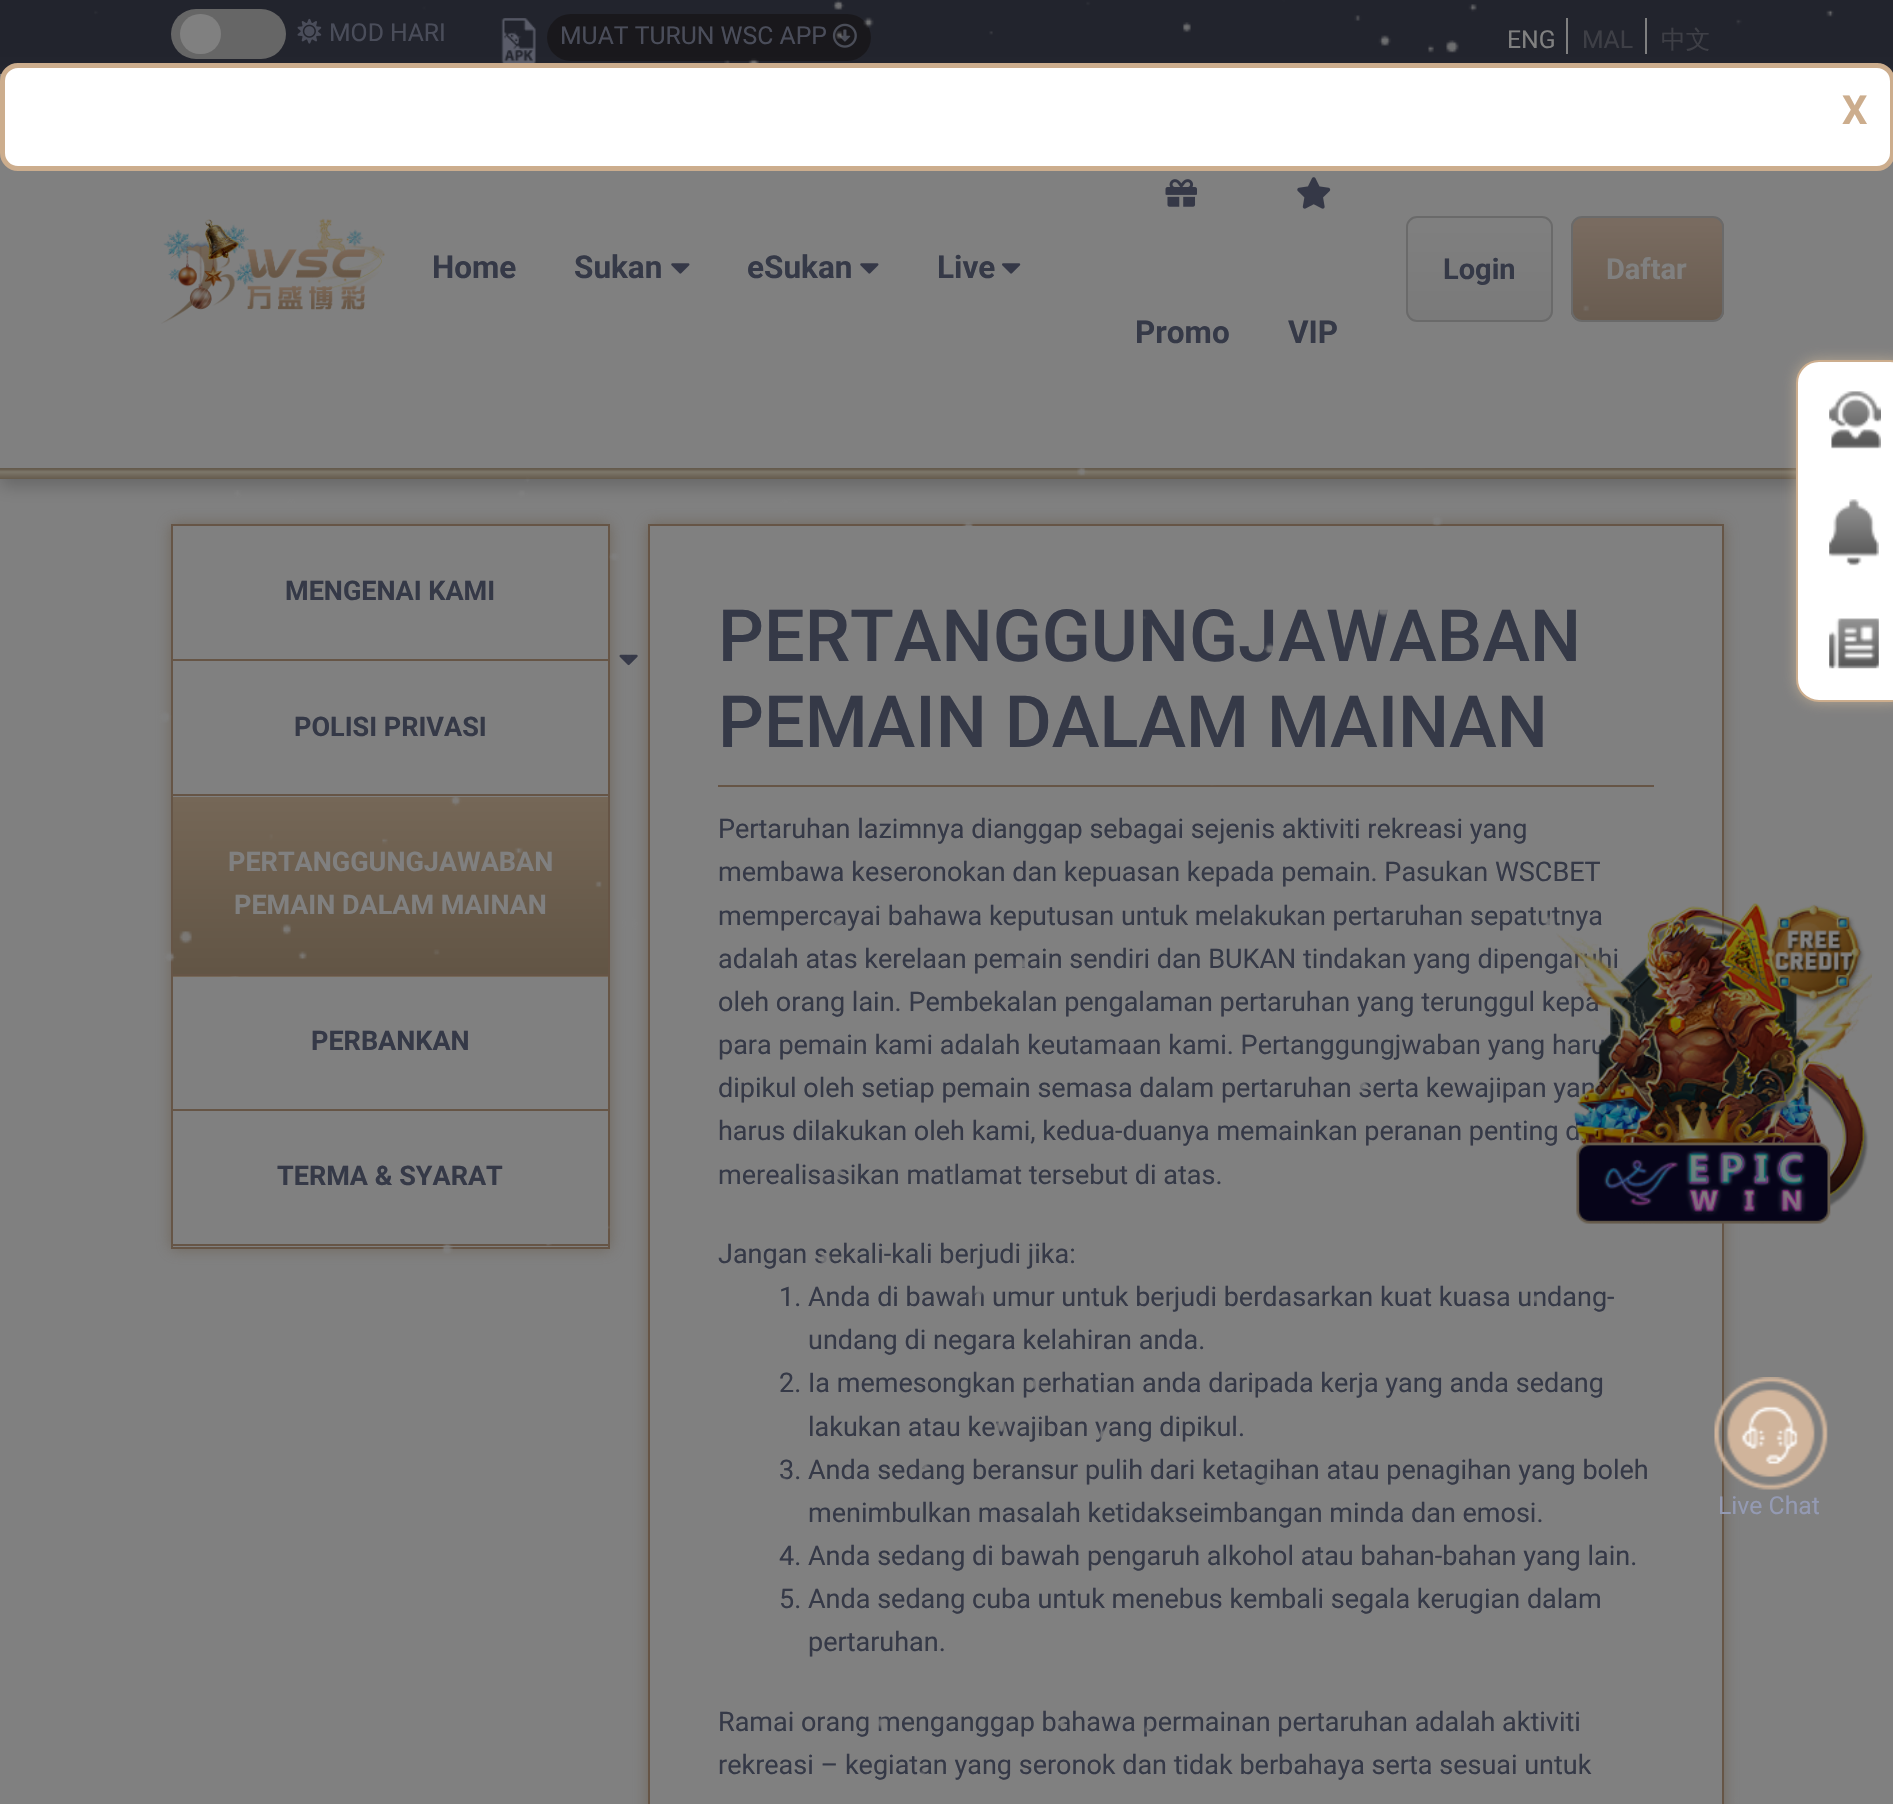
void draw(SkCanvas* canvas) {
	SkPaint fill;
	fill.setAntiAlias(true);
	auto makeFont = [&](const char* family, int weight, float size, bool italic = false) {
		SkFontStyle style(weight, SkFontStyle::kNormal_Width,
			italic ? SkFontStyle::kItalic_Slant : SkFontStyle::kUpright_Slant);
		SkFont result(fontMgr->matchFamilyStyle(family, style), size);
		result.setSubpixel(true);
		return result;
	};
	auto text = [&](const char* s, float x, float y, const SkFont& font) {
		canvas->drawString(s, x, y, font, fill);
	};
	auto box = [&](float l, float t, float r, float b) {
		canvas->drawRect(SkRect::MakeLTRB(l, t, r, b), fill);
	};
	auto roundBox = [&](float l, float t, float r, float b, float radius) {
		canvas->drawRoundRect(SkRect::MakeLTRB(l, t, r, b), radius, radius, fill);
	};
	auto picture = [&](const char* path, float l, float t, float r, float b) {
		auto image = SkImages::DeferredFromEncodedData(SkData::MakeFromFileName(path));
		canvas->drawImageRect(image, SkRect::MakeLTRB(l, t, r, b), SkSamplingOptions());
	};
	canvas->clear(0xFF808080);
	fill.setColor(0xFF22242D);
	box(0, 0, 1893, 74);
	fill.setColor(0xFF666666);
	roundBox(171, 9, 286, 59, 25);
	fill.setColor(0xFF808080);
	roundBox(180, 14, 221, 54, 20);
	picture("image1.png", 297, 18, 322, 44);
	picture("image2.png", 501, 18, 536, 63);
	fill.setColor(0xFF19181C);
	roundBox(547, 14, 871, 61, 23.5f);
	picture("image3.png", 832, 23, 857, 48);
	fill.setColor(0xFF808080);
	box(1566, 18, 1568, 54);
	box(1645, 18, 1647, 54);
	fill.setColor(0xFF666666);
	fill.setMaskFilter(SkMaskFilter::MakeBlur(kNormal_SkBlurStyle, 8));
	canvas->drawRect(SkRect::MakeLTRB(0, 81, 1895, 486), fill);
	fill.setMaskFilter(nullptr);
	fill.setColor(0xFF808080);
	box(0, 74, 1893, 468);
	picture("image4.png", 161, 218, 385, 324);
	picture("image5.png", 671, 263, 690, 274);
	picture("image5.png", 860, 263, 879, 274);
	picture("image6.png", 1002, 263, 1021, 274);
	picture("image7.png", 619, 654, 638, 666);
	picture("image8.png", 1165, 179, 1197, 207);
	picture("image9.png", 1297, 177, 1331, 209);
	canvas->save();
	canvas->clipPath(SkPathBuilder().moveTo(1417, 216).lineTo(1542, 216).cubicTo(1548, 216, 1553, 221, 1553, 227).lineTo(1553, 311).cubicTo(1553, 317, 1548, 322, 1542, 322).lineTo(1417, 322).cubicTo(1411, 322, 1406, 317, 1406, 311).lineTo(1406, 227).cubicTo(1406, 221, 1411, 216, 1417, 216).close().detach(), true);
	{
		const SkColor colors[] = {0xFF7F7F7F, 0xFF7A7A7A};
		const float stops[] = {0.05f, 1};
		const SkPoint ends[] = {{1479, 218}, {1479, 320}};
		fill.setShader(SkGradientShader::MakeLinear(ends, colors, stops, 2, SkTileMode::kClamp));
		fill.setAlpha(255);
	}
	box(1406, 218, 1553, 320);
	canvas->restore();
	fill.setStyle(SkPaint::kStroke_Style);
	fill.setStrokeWidth(2);
	fill.setShader(nullptr);
	fill.setColor(0xFF6A6A6A);
	canvas->drawRoundRect(SkRect::MakeLTRB(1407, 217, 1552, 321), 10, 10, fill);
	canvas->save();
	canvas->clipPath(SkPathBuilder().moveTo(1582, 216).lineTo(1713, 216).cubicTo(1719, 216, 1724, 221, 1724, 227).lineTo(1724, 311).cubicTo(1724, 317, 1719, 322, 1713, 322).lineTo(1582, 322).cubicTo(1576, 322, 1571, 317, 1571, 311).lineTo(1571, 227).cubicTo(1571, 221, 1576, 216, 1582, 216).close().detach(), true);
	fill.setStyle(SkPaint::kFill_Style);
	{
		const SkColor colors[] = {0xFF796B60, 0xFF695C50};
		const float stops[] = {0.05f, 1};
		const SkPoint ends[] = {{1647, 218}, {1647, 320}};
		fill.setShader(SkGradientShader::MakeLinear(ends, colors, stops, 2, SkTileMode::kClamp));
		fill.setAlpha(255);
	}
	box(1571, 218, 1724, 320);
	canvas->restore();
	fill.setStyle(SkPaint::kStroke_Style);
	fill.setShader(nullptr);
	fill.setColor(0xFF6A6A6A);
	canvas->drawRoundRect(SkRect::MakeLTRB(1572, 217, 1723, 321), 10, 10, fill);
	fill.setStyle(SkPaint::kFill_Style);
	{
		const SkColor colors[] = {0xFF655B4D, 0xFF7C766A, 0xFF655B4D};
		const float stops[] = {0.1f, 0.35f, 1};
		const SkPoint ends[] = {{947, 468}, {947, 479}};
		fill.setShader(SkGradientShader::MakeLinear(ends, colors, stops, 3, SkTileMode::kClamp));
		fill.setAlpha(255);
	}
	box(0, 468, 1796, 479);
	canvas->save();
	canvas->clipPath(SkPathBuilder(SkPathFillType::kEvenOdd).moveTo(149, 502).lineTo(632, 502).lineTo(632, 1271).lineTo(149, 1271).close().moveTo(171, 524).lineTo(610, 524).lineTo(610, 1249).lineTo(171, 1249).close().detach(), true);
	fill.setShader(nullptr);
	fill.setColor(0xB3665B4C);
	fill.setMaskFilter(SkMaskFilter::MakeBlur(kNormal_SkBlurStyle, 7));
	canvas->drawRect(SkRect::MakeLTRB(171, 524, 610, 1249), fill);
	fill.setMaskFilter(nullptr);
	canvas->restore();
	fill.setStyle(SkPaint::kStroke_Style);
	fill.setColor(0xFF665546);
	canvas->drawRect(SkRect::MakeLTRB(172, 525, 609, 1248), fill);
	fill.setStyle(SkPaint::kFill_Style);
	box(173, 659, 608, 661);
	box(173, 794, 608, 796);
	{
		const SkColor colors[] = {0xFF756757, 0xFF625545};
		const float stops[] = {0, 0.99f};
		const SkPoint ends[] = {{390, 797}, {390, 974}};
		fill.setShader(SkGradientShader::MakeLinear(ends, colors, stops, 2, SkTileMode::kClamp));
		fill.setAlpha(255);
	}
	box(173, 797, 608, 974);
	{
		const SkColor colors[] = {0xFF756757, 0xFF625545};
		const float stops[] = {0, 0.99f};
		const SkPoint ends[] = {{390, 974}, {390, 1152}};
		fill.setShader(SkGradientShader::MakeLinear(ends, colors, stops, 2, SkTileMode::kClamp));
		fill.setAlpha(255);
	}
	box(173, 976, 608, 977);
	fill.setShader(nullptr);
	fill.setColor(0xFF665546);
	box(173, 974, 608, 976);
	box(173, 1109, 608, 1111);
	box(173, 1244, 608, 1246);
	fill.setColor(0xB3665B4C);
	fill.setMaskFilter(SkMaskFilter::MakeBlur(kNormal_SkBlurStyle, 7));
	canvas->drawRect(SkRect::MakeLTRB(648, 524, 1724, 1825), fill);
	fill.setMaskFilter(nullptr);
	fill.setColor(0xFF808080);
	canvas->drawRect(SkRect::MakeLTRB(649, 525, 1723, 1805), fill);
	fill.setStyle(SkPaint::kStroke_Style);
	fill.setColor(0xFF665546);
	canvas->drawRect(SkRect::MakeLTRB(649, 525, 1723, 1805), fill);
	fill.setStyle(SkPaint::kFill_Style);
	box(718, 785, 1654, 787);
	auto font1 = makeFont("Roboto", 400, 24.75f);
	fill.setColor(0xFF4A4D5A);
	text("MOD HARI", 329, 41, font1);
	text("MUAT TURUN WSC APP", 560, 44, font1);
	fill.setColor(0xFF808080);
	text("ENG", 1507, 48, font1);
	fill.setColor(0xFF3E3F46);
	text("MAL", 1582, 48, font1);
	auto font2 = makeFont("WenQuanYi Zen Hei", 500, 24.75f);
	text("中文", 1661, 48, font2);
	auto font3 = makeFont("Roboto", 700, 31.5f);
	fill.setColor(0xFF353947);
	text("Home", 432, 278, font3);
	text("Sukan", 574, 278, font3);
	text("eSukan", 747, 278, font3);
	text("Live", 937, 278, font3);
	text("Promo", 1135, 343, font3);
	text("VIP", 1288, 343, font3);
	auto font4 = makeFont("Roboto", 700, 29);
	text("Login", 1443, 279, font4);
	fill.setColor(0xFF808080);
	text("Daftar", 1606, 279, font4);
	auto font5 = makeFont("Roboto", 700, 27);
	fill.setColor(0xFF353947);
	text("MENGENAI KAMI", 285, 600, font5);
	text("POLISI PRIVASI", 294, 736, font5);
	fill.setColor(0xFF808080);
	text("PERTANGGUNGJAWABAN", 228, 871, font5);
	text("PEMAIN DALAM MAINAN", 234, 914, font5);
	fill.setColor(0xFF353947);
	text("PERBANKAN", 311, 1050, font5);
	text("TERMA & SYARAT", 277, 1185, font5);
	auto font6 = makeFont("Roboto", 500, 72);
	text("PERTANGGUNGJAWABAN", 718, 661, font6);
	text("PEMAIN DALAM MAINAN", 718, 747, font6);
	auto font7 = makeFont("Roboto", 400, 27);
	text("Pertaruhan lazimnya dianggap sebagai sejenis aktiviti rekreasi yang", 718, 838, font7);
	text("membawa keseronokan dan kepuasan kepada pemain. Pasukan WSCBET", 718, 881, font7);
	text("mempercayai bahawa keputusan untuk melakukan pertaruhan sepatutnya", 718, 925, font7);
	text("adalah atas kerelaan pemain sendiri dan BUKAN tindakan yang dipengaruhi", 718, 968, font7);
	text("oleh orang lain. Pembekalan pengalaman pertaruhan yang terunggul kepa", 718, 1011, font7);
	text("para pemain kami adalah keutamaan kami. Pertanggungjwaban yang haru", 718, 1054, font7);
	text("dipikul oleh setiap pemain semasa dalam pertaruhan serta kewajipan yan", 718, 1097, font7);
	text("harus dilakukan oleh kami, kedua-duanya memainkan peranan penting d", 718, 1140, font7);
	text("merealisasikan matlamat tersebut di atas.", 718, 1184, font7);
	text("Jangan sekali-kali berjudi jika:", 718, 1263, font7);
	text("1. Anda di bawah umur untuk berjudi berdasarkan kuat kuasa undang-", 779, 1306, font7);
	text("undang di negara kelahiran anda.", 808, 1349, font7);
	text("2. Ia memesongkan perhatian anda daripada kerja yang anda sedang", 779, 1392, font7);
	text("lakukan atau kewajiban yang dipikul.", 808, 1436, font7);
	text("3. Anda sedang beransur pulih dari ketagihan atau penagihan yang boleh", 779, 1479, font7);
	text("menimbulkan masalah ketidakseimbangan minda dan emosi.", 808, 1522, font7);
	text("4. Anda sedang di bawah pengaruh alkohol atau bahan-bahan yang lain.", 779, 1565, font7);
	text("5. Anda sedang cuba untuk menebus kembali segala kerugian dalam", 779, 1608, font7);
	text("pertaruhan.", 808, 1651, font7);
	text("Ramai orang menganggap bahawa permainan pertaruhan adalah aktiviti", 718, 1731, font7);
	text("rekreasi – kegiatan yang seronok dan tidak berbahaya serta sesuai untuk", 718, 1774, font7);
	picture("image0.png", 94, 0, 1834, 1803);
	fill.setColor(0xB3CBB698);
	fill.setMaskFilter(SkMaskFilter::MakeBlur(kNormal_SkBlurStyle, 7));
	canvas->drawRoundRect(SkRect::MakeLTRB(1796, 360, 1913, 702), 23, 23, fill);
	fill.setMaskFilter(nullptr);
	fill.setColor(0xFFFFFFFF);
	canvas->drawRoundRect(SkRect::MakeLTRB(1797, 361, 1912, 701), 22, 22, fill);
	fill.setStyle(SkPaint::kStroke_Style);
	fill.setColor(0xFFCCAD8D);
	canvas->drawRoundRect(SkRect::MakeLTRB(1797, 361, 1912, 701), 22, 22, fill);
	picture("image12.png", 1829, 618, 1879, 669);
	picture("image11.png", 1829, 499, 1879, 566);
	picture("image10.png", 1829, 391, 1881, 449);
	fill.setStyle(SkPaint::kFill_Style);
	fill.setColor(0xFFFFFFFF);
	canvas->drawRoundRect(SkRect::MakeLTRB(2.5f, 65.5f, 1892.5f, 168.5f), 15.5f, 15.5f, fill);
	fill.setStyle(SkPaint::kStroke_Style);
	fill.setStrokeWidth(5);
	fill.setColor(0xFFCCAD8D);
	canvas->drawRoundRect(SkRect::MakeLTRB(2.5f, 65.5f, 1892.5f, 168.5f), 15.5f, 15.5f, fill);
	auto font8 = makeFont("Roboto", 700, 40);
	fill.setStyle(SkPaint::kFill_Style);
	text("X", 1842, 124, font8);
	picture("image13.png", 1556, 903, 1872, 1224);
	picture("image14.png", 1714, 1377, 1828, 1490);
	fill.setColor(0xFF949AB3);
	text("Live Chat", 1718, 1514, font1);
}
